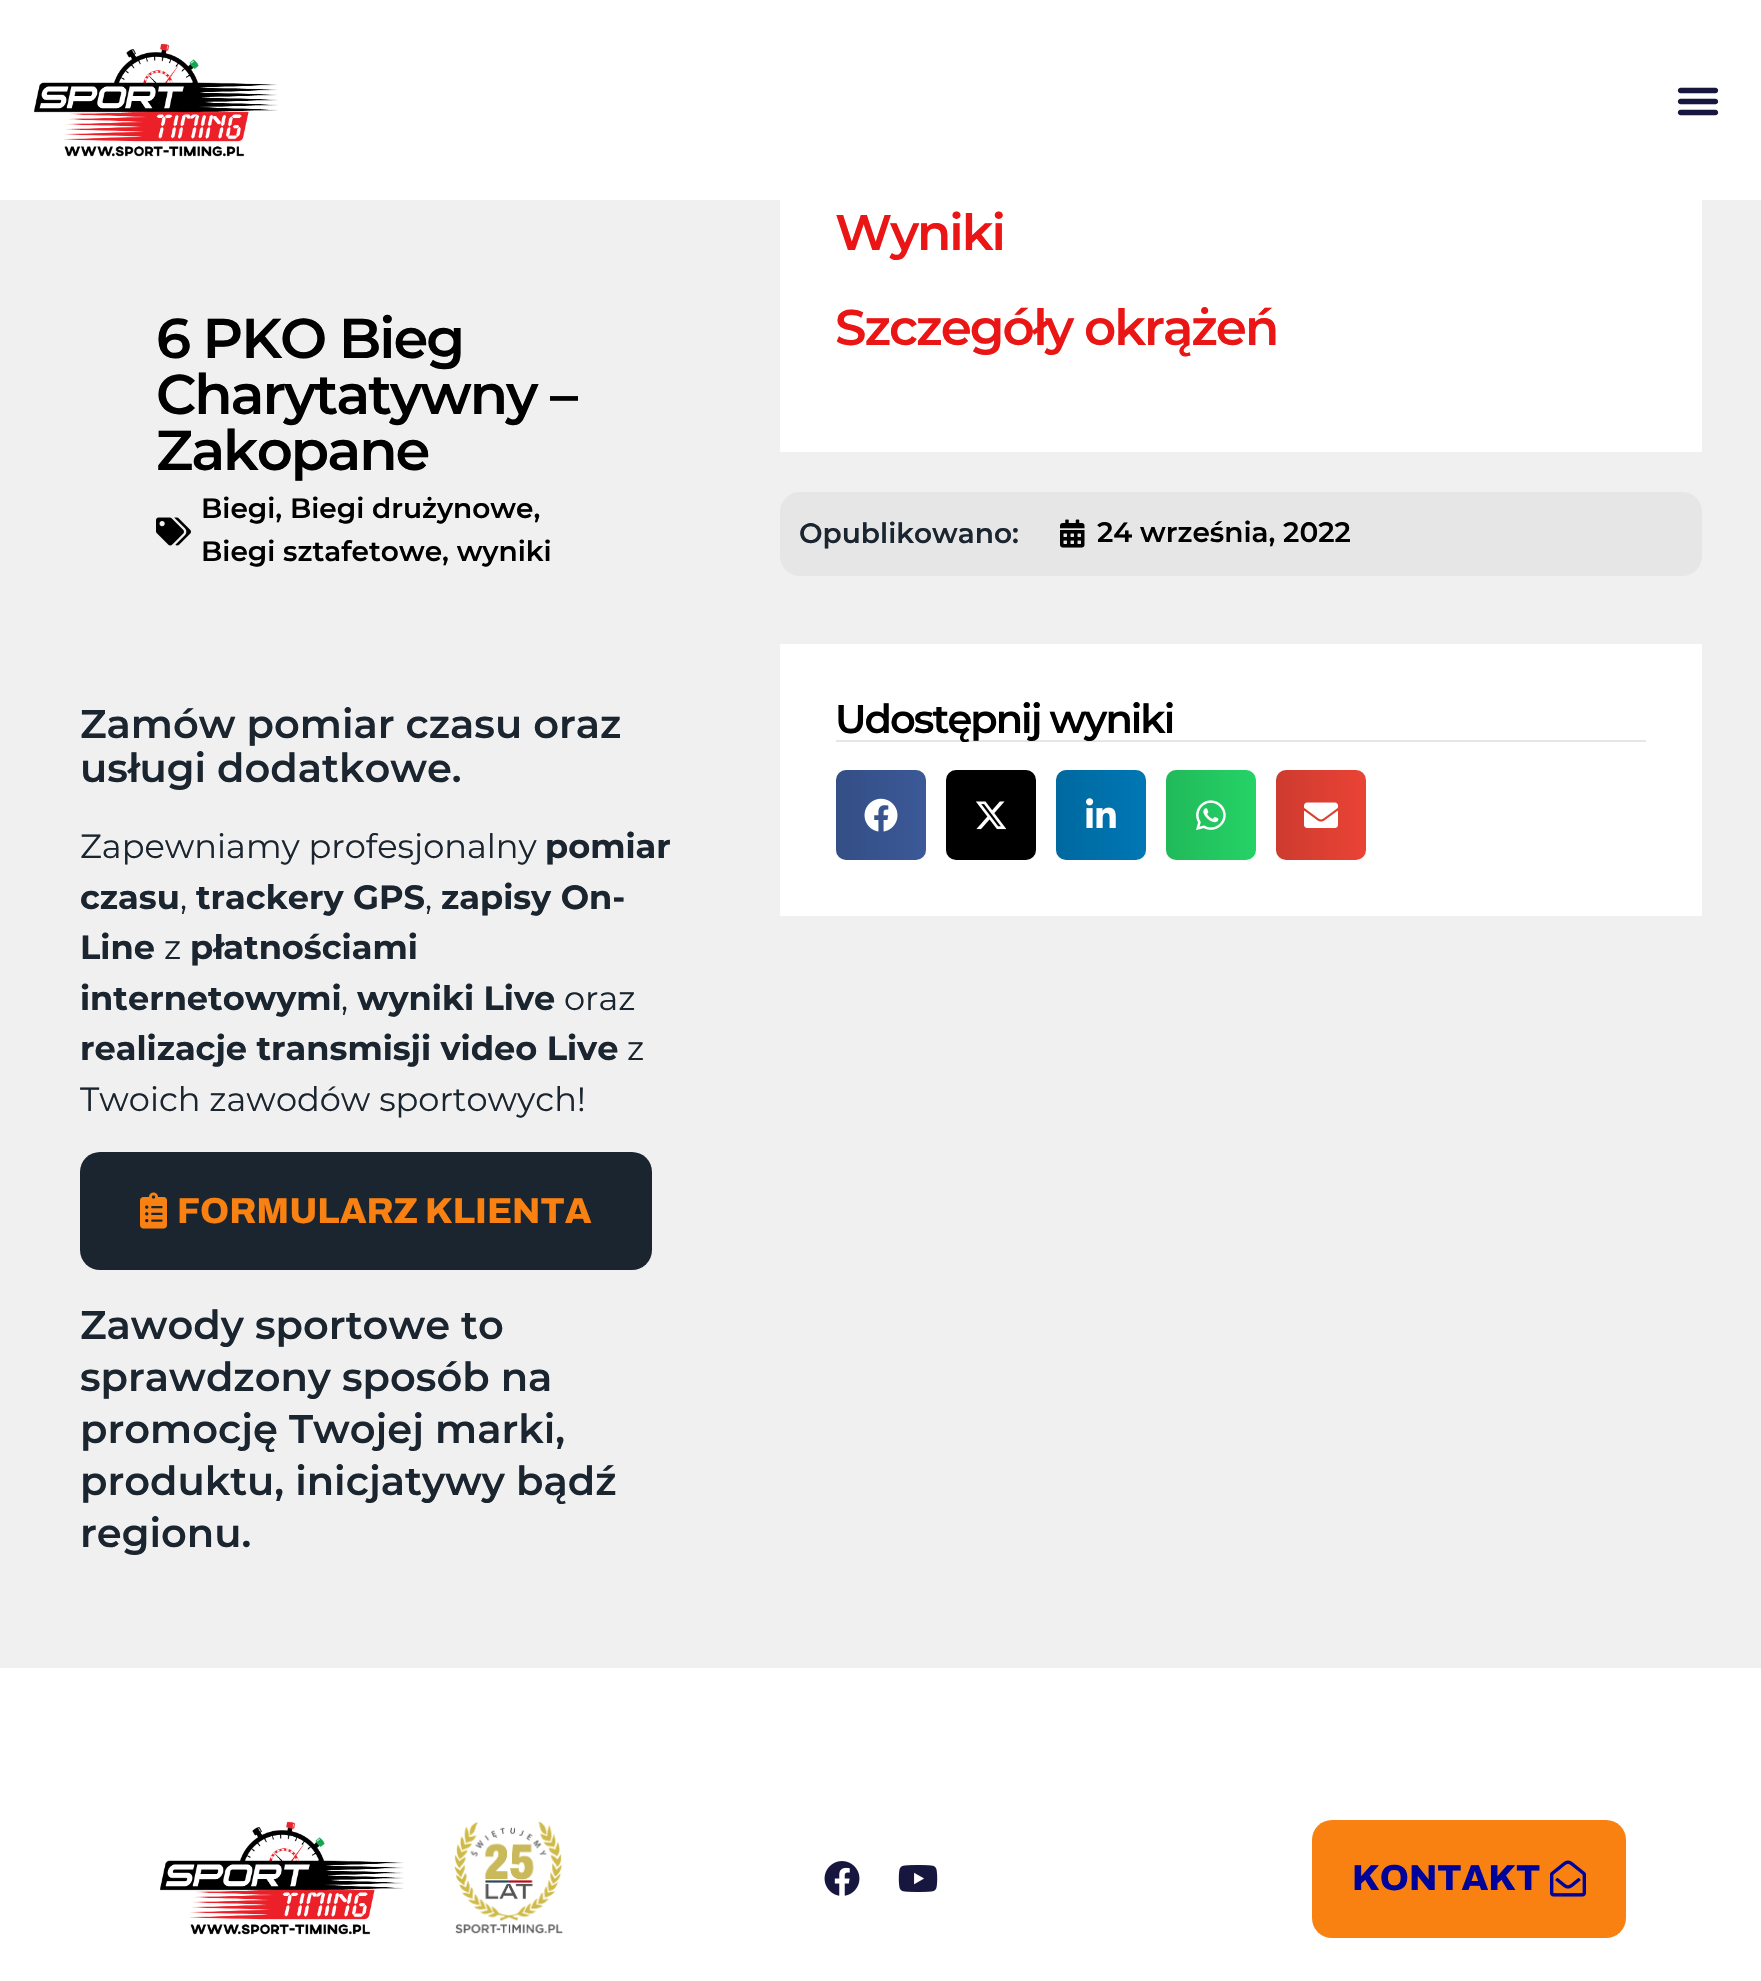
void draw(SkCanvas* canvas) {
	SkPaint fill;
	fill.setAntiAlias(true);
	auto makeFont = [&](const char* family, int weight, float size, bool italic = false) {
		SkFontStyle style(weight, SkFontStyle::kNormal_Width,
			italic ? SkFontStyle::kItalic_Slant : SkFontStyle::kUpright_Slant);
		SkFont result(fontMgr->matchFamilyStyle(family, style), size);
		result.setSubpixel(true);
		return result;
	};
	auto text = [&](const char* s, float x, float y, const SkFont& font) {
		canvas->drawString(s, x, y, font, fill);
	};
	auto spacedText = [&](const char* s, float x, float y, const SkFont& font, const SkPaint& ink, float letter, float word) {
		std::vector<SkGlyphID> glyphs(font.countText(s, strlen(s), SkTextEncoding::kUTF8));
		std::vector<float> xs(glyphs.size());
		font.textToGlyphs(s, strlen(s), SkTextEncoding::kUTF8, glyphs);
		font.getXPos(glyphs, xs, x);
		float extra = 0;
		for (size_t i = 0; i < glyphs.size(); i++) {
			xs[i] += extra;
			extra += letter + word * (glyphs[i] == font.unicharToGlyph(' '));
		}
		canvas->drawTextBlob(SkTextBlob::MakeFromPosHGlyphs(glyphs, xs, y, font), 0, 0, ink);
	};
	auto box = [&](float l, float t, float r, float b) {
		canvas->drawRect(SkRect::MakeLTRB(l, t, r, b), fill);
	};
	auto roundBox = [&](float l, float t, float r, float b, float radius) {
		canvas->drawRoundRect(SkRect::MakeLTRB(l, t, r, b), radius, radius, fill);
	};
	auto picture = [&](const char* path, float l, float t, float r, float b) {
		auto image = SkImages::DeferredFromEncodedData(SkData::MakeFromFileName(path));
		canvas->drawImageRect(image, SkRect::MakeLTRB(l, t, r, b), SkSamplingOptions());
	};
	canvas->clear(0xFFF0F0F0);
	fill.setColor(0xFFFFFFFF);
	canvas->drawPath(SkPathBuilder().moveTo(800, 172).lineTo(1702, 172).lineTo(1702, 452).lineTo(780, 452).lineTo(780, 182).cubicTo(780, 176, 789, 172, 800, 172).close().detach(), fill);
	box(0, 0, 1761, 200);
	picture("image0.png", 34, 43, 278, 157);
	picture("image1.png", 1677, 87, 1719, 116);
	picture("image2.png", 156, 517, 191, 546);
	fill.setColor(0xFF1B252F);
	roundBox(80, 1152, 652, 1270, 20);
	picture("image3.png", 140, 1192, 167, 1229);
	fill.setColor(0xFFE6E6E6);
	roundBox(780, 492, 1702, 576, 20);
	picture("image4.png", 1060, 519, 1085, 548);
	fill.setColor(0xFFFFFFFF);
	box(780, 644, 1702, 916);
	fill.setColor(0xFFE6E6E6);
	box(836, 740, 1646, 742);
	fill.setColor(0xFF3B5998);
	roundBox(836, 770, 926, 860, 10);
	{
		const SkColor colors[] = {0x1F000000, 0x00000000};
		const float stops[] = {0, 1};
		const SkPoint ends[] = {{836, 815}, {926, 815}};
		fill.setShader(SkGradientShader::MakeLinear(ends, colors, stops, 2, SkTileMode::kClamp));
		fill.setAlpha(255);
	}
	roundBox(836, 770, 926, 860, 10);
	picture("image5.png", 864, 798, 898, 832);
	fill.setShader(nullptr);
	fill.setColor(0xFF000000);
	roundBox(946, 770, 1036, 860, 10);
	{
		const SkColor colors[] = {0x1F000000, 0x00000000};
		const float stops[] = {0, 1};
		const SkPoint ends[] = {{946, 815}, {1036, 815}};
		fill.setShader(SkGradientShader::MakeLinear(ends, colors, stops, 2, SkTileMode::kClamp));
		fill.setAlpha(255);
	}
	roundBox(946, 770, 1036, 860, 10);
	picture("image6.png", 975, 801, 1007, 830);
	fill.setShader(nullptr);
	fill.setColor(0xFF0077B5);
	roundBox(1056, 770, 1146, 860, 10);
	{
		const SkColor colors[] = {0x1F000000, 0x00000000};
		const float stops[] = {0, 1};
		const SkPoint ends[] = {{1056, 815}, {1146, 815}};
		fill.setShader(SkGradientShader::MakeLinear(ends, colors, stops, 2, SkTileMode::kClamp));
		fill.setAlpha(255);
	}
	roundBox(1056, 770, 1146, 860, 10);
	picture("image7.png", 1086, 798, 1116, 828);
	fill.setShader(nullptr);
	fill.setColor(0xFF25D366);
	roundBox(1166, 770, 1256, 860, 10);
	{
		const SkColor colors[] = {0x1F000000, 0x00000000};
		const float stops[] = {0, 1};
		const SkPoint ends[] = {{1166, 815}, {1256, 815}};
		fill.setShader(SkGradientShader::MakeLinear(ends, colors, stops, 2, SkTileMode::kClamp));
		fill.setAlpha(255);
	}
	roundBox(1166, 770, 1256, 860, 10);
	picture("image8.png", 1196, 800, 1226, 831);
	fill.setShader(nullptr);
	fill.setColor(0xFFEA4335);
	roundBox(1276, 770, 1366, 860, 10);
	{
		const SkColor colors[] = {0x1F000000, 0x00000000};
		const float stops[] = {0, 1};
		const SkPoint ends[] = {{1276, 815}, {1366, 815}};
		fill.setShader(SkGradientShader::MakeLinear(ends, colors, stops, 2, SkTileMode::kClamp));
		fill.setAlpha(255);
	}
	roundBox(1276, 770, 1366, 860, 10);
	picture("image9.png", 1304, 802, 1338, 828);
	fill.setShader(nullptr);
	fill.setColor(0xFFFFFFFF);
	box(0, 1668, 1761, 1981);
	picture("image10.png", 160, 1821, 404, 1935);
	picture("image11.png", 454, 1822, 563, 1934);
	picture("image12.png", 824, 1861, 860, 1896);
	picture("image13.png", 898, 1865, 938, 1892);
	fill.setColor(0xFFF88112);
	roundBox(1312, 1820, 1626, 1938, 20);
	picture("image14.png", 1550, 1860, 1586, 1897);
	auto font1 = makeFont("Montserrat", 600, 56);
	fill.setColor(0xFF000000);
	spacedText("6 PKO Bieg", 156, 358, font1, fill, -2, 0);
	spacedText("Charytatywny –", 156, 414, font1, fill, -2, 0);
	spacedText("Zakopane", 156, 470, font1, fill, -2, 0);
	auto font2 = makeFont("Montserrat", 600, 28);
	text("Biegi, Biegi drużynowe,", 201, 518, font2);
	text("Biegi sztafetowe, wyniki", 201, 561, font2);
	auto font3 = makeFont("Montserrat", 600, 40);
	fill.setColor(0xFF1B252F);
	text("Zamów pomiar czasu oraz", 80, 738, font3);
	text("usługi dodatkowe.", 80, 782, font3);
	auto font4 = makeFont("Montserrat", 400, 33.6f);
	text("Zapewniamy profesjonalny", 80, 858, font4);
	auto font5 = makeFont("Montserrat", 700, 33.6f);
	text("pomiar", 545, 858, font5);
	text("czasu", 80, 909, font5);
	text(",", 180, 909, font4);
	text("trackery GPS", 196, 909, font5);
	text(",", 425, 909, font4);
	text("zapisy On-", 441, 909, font5);
	text("Line", 80, 959, font5);
	text("z", 164, 959, font4);
	text("płatnościami", 190, 959, font5);
	text("internetowymi", 80, 1010, font5);
	text(",", 341, 1010, font4);
	text("wyniki Live", 357, 1010, font5);
	text("oraz", 564, 1010, font4);
	text("realizacje transmisji video Live", 80, 1060, font5);
	text("z", 627, 1060, font4);
	text("Twoich zawodów sportowych!", 80, 1111, font4);
	auto font6 = makeFont("Archivo", 800, 36);
	fill.setColor(0xFFF88112);
	text("FORMULARZ KLIENTA", 177, 1223, font6);
	fill.setColor(0xFF1B252F);
	text("Zawody sportowe to", 80, 1339, font3);
	text("sprawdzony sposób na", 80, 1391, font3);
	text("promocję Twojej marki,", 80, 1443, font3);
	text("produktu, inicjatywy bądź", 80, 1495, font3);
	text("regionu.", 80, 1547, font3);
	auto font7 = makeFont("Montserrat", 600, 50);
	fill.setColor(0xFFEA1515);
	spacedText("Wyniki", 835, 250, font7, fill, -2, 0);
	spacedText("Szczegóły okrążeń", 835, 345, font7, fill, -2, 0);
	fill.setColor(0xFF1B252F);
	text("Opublikowano:", 799, 543, font2);
	fill.setColor(0xFF000000);
	text("24 września, 2022", 1097, 542, font2);
	spacedText("Udostępnij wyniki", 835, 733, font3, fill, -2, 0);
	fill.setColor(0xFF000399);
	text("KONTAKT", 1352, 1890, font6);
}
